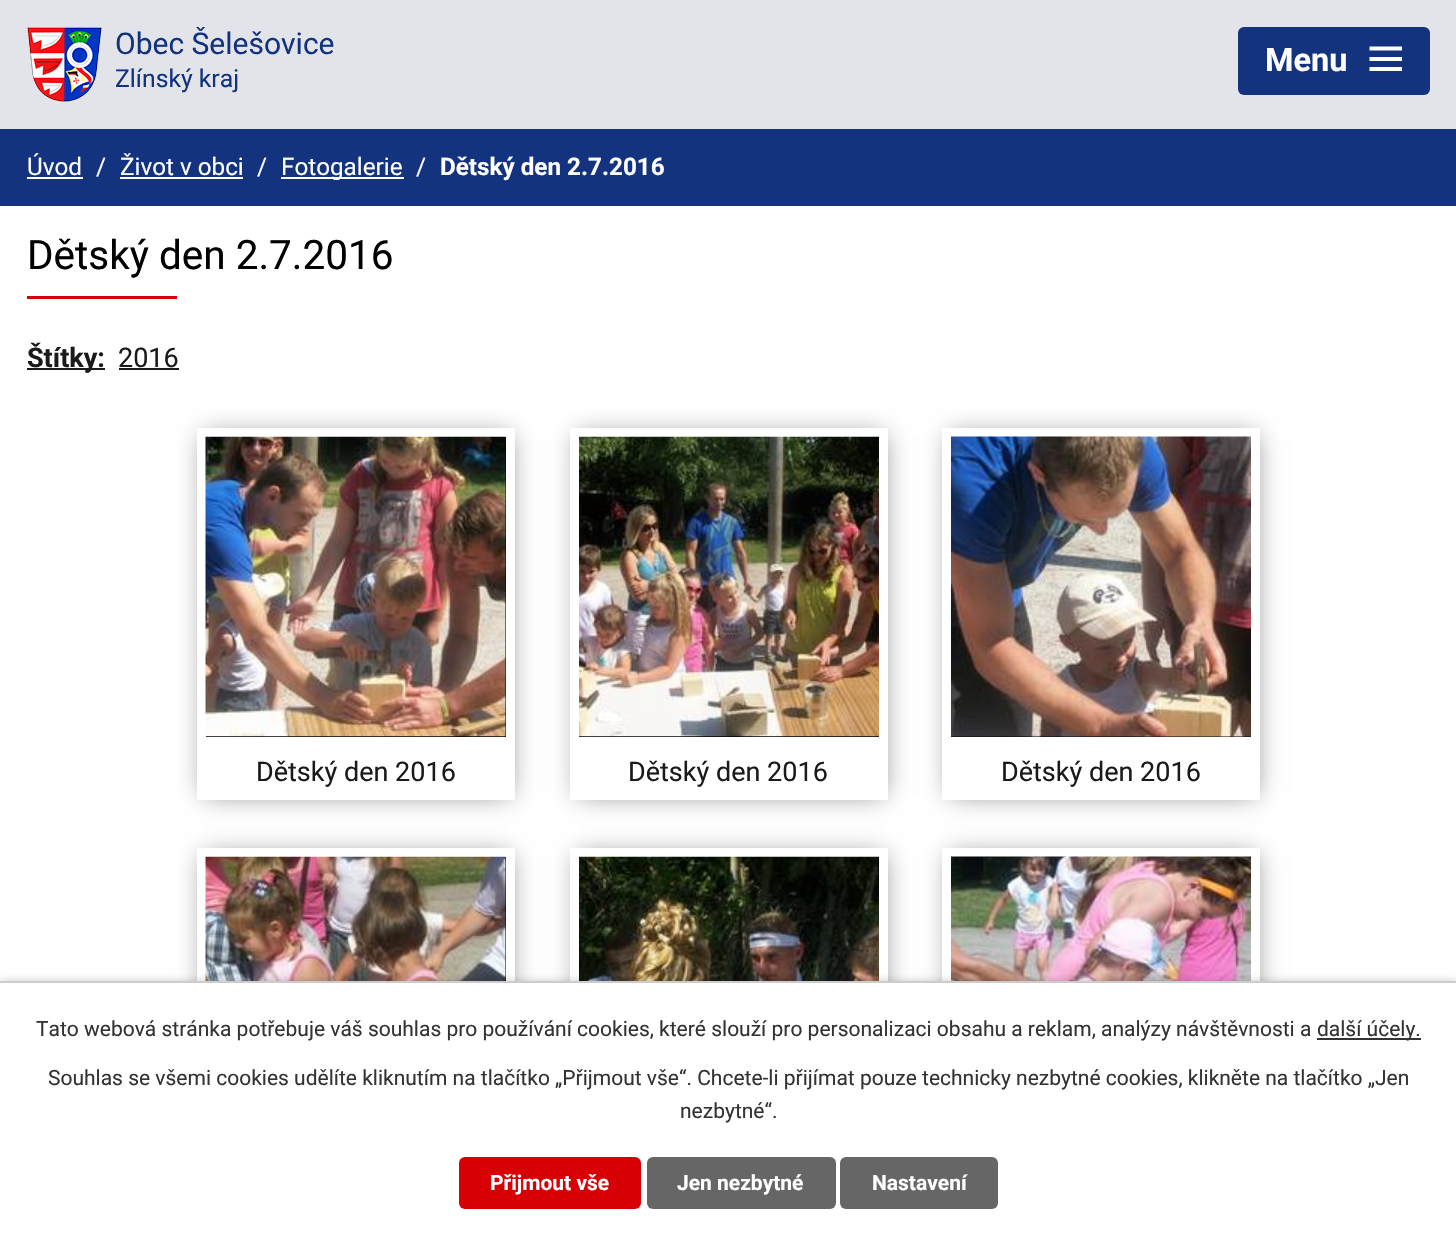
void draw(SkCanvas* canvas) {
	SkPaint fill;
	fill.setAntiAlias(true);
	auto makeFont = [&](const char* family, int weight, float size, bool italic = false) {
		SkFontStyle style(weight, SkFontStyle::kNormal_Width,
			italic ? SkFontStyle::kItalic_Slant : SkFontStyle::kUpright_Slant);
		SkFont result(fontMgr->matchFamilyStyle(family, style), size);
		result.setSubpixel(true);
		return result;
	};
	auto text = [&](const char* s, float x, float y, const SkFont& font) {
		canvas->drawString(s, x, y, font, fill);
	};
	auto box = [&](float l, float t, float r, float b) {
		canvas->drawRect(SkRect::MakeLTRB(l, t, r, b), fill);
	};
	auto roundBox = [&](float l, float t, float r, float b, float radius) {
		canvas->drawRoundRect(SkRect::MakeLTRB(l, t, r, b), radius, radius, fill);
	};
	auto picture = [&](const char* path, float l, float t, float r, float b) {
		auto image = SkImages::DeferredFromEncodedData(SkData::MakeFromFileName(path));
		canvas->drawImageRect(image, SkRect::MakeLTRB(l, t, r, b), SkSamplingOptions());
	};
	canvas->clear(0xFFFFFFFF);
	fill.setColor(0xFFE2E4EA);
	box(0, 0, 1456, 129);
	picture("image0.png", 27, 27, 102, 102);
	fill.setColor(0xFF13337F);
	roundBox(1238, 27, 1430, 95, 6);
	fill.setColor(0xFFFFFFFF);
	canvas->drawPath(SkPathBuilder().moveTo(1369.5f, 71).lineTo(1369.5f, 67).lineTo(1402, 67).lineTo(1402, 71).close().moveTo(1369.5f, 46.5f).lineTo(1402, 46.5f).lineTo(1402, 50.5f).lineTo(1369.5f, 50.5f).close().moveTo(1369.5f, 61).lineTo(1369.5f, 57).lineTo(1402, 57).lineTo(1402, 61).close().detach(), fill);
	fill.setColor(0xFF13337F);
	box(0, 129, 1456, 206);
	fill.setColor(0xFFFFFFFF);
	box(27, 177, 83, 179);
	box(120, 177, 243, 179);
	box(281, 177, 404, 179);
	fill.setColor(0xFFD60005);
	box(27, 296, 177, 299);
	fill.setColor(0xFF1A1A1A);
	box(27, 368, 105, 370);
	box(119, 368, 179, 370);
	canvas->save();
	canvas->clipPath(SkPathBuilder(SkPathFillType::kEvenOdd).moveTo(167, 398).lineTo(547, 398).lineTo(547, 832).lineTo(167, 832).close().moveTo(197, 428).lineTo(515, 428).lineTo(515, 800).lineTo(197, 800).close().detach(), true);
	fill.setColor(0xFF888888);
	fill.setMaskFilter(SkMaskFilter::MakeBlur(kNormal_SkBlurStyle, 12));
	canvas->drawRect(SkRect::MakeLTRB(204, 435, 510, 795), fill);
	fill.setMaskFilter(nullptr);
	canvas->restore();
	fill.setColor(0xFF000000);
	box(206, 437, 506, 737);
	picture("image1.png", 205, 436, 506, 737);
	canvas->save();
	canvas->clipPath(SkPathBuilder(SkPathFillType::kEvenOdd).moveTo(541, 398).lineTo(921, 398).lineTo(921, 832).lineTo(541, 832).close().moveTo(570, 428).lineTo(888, 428).lineTo(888, 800).lineTo(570, 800).close().detach(), true);
	fill.setColor(0xFF888888);
	fill.setMaskFilter(SkMaskFilter::MakeBlur(kNormal_SkBlurStyle, 12));
	canvas->drawRect(SkRect::MakeLTRB(578, 435, 884, 795), fill);
	fill.setMaskFilter(nullptr);
	canvas->restore();
	fill.setColor(0xFF000000);
	box(579, 736, 879, 737);
	picture("image2.png", 579, 436, 879, 737);
	canvas->save();
	canvas->clipPath(SkPathBuilder(SkPathFillType::kEvenOdd).moveTo(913, 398).lineTo(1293, 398).lineTo(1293, 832).lineTo(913, 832).close().moveTo(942, 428).lineTo(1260, 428).lineTo(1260, 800).lineTo(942, 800).close().detach(), true);
	fill.setColor(0xFF888888);
	fill.setMaskFilter(SkMaskFilter::MakeBlur(kNormal_SkBlurStyle, 12));
	canvas->drawRect(SkRect::MakeLTRB(950, 435, 1256, 795), fill);
	fill.setMaskFilter(nullptr);
	canvas->restore();
	fill.setColor(0xFF000000);
	box(951, 736, 1251, 737);
	picture("image3.png", 951, 436, 1251, 737);
	canvas->save();
	canvas->clipPath(SkPathBuilder(SkPathFillType::kEvenOdd).moveTo(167, 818).lineTo(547, 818).lineTo(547, 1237).lineTo(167, 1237).close().moveTo(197, 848).lineTo(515, 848).lineTo(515, 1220).lineTo(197, 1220).close().detach(), true);
	fill.setColor(0xFF888888);
	fill.setMaskFilter(SkMaskFilter::MakeBlur(kNormal_SkBlurStyle, 12));
	canvas->drawRect(SkRect::MakeLTRB(204, 855, 510, 1215), fill);
	fill.setMaskFilter(nullptr);
	canvas->restore();
	fill.setColor(0xFF000000);
	box(505, 857, 506, 981);
	picture("image4.png", 205, 856, 506, 981);
	canvas->save();
	canvas->clipPath(SkPathBuilder(SkPathFillType::kEvenOdd).moveTo(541, 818).lineTo(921, 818).lineTo(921, 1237).lineTo(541, 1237).close().moveTo(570, 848).lineTo(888, 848).lineTo(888, 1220).lineTo(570, 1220).close().detach(), true);
	fill.setColor(0xFF888888);
	fill.setMaskFilter(SkMaskFilter::MakeBlur(kNormal_SkBlurStyle, 12));
	canvas->drawRect(SkRect::MakeLTRB(578, 855, 884, 1215), fill);
	fill.setMaskFilter(nullptr);
	canvas->restore();
	picture("image5.png", 579, 856, 879, 981);
	canvas->save();
	canvas->clipPath(SkPathBuilder(SkPathFillType::kEvenOdd).moveTo(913, 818).lineTo(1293, 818).lineTo(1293, 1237).lineTo(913, 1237).close().moveTo(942, 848).lineTo(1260, 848).lineTo(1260, 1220).lineTo(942, 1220).close().detach(), true);
	fill.setMaskFilter(SkMaskFilter::MakeBlur(kNormal_SkBlurStyle, 12));
	canvas->drawRect(SkRect::MakeLTRB(950, 855, 1256, 1215), fill);
	fill.setMaskFilter(nullptr);
	canvas->restore();
	picture("image6.png", 951, 856, 1251, 981);
	fill.setColor(0x33000000);
	fill.setMaskFilter(SkMaskFilter::MakeBlur(kNormal_SkBlurStyle, 4));
	canvas->drawRect(SkRect::MakeLTRB(0, 981, 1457, 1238), fill);
	fill.setMaskFilter(nullptr);
	fill.setColor(0xFFFFFFFF);
	box(0, 983, 1456, 1237);
	fill.setColor(0xFFCCCCCC);
	box(0, 981, 1456, 983);
	fill.setColor(0xFF333333);
	box(1317, 1038, 1421, 1040);
	fill.setColor(0xFFD60005);
	roundBox(459, 1157, 641, 1209, 6);
	fill.setColor(0xFF666666);
	roundBox(647, 1157, 836, 1209, 6);
	roundBox(840, 1157, 998, 1209, 6);
	auto font1 = makeFont("Roboto", 400, 30);
	fill.setColor(0xFF13337F);
	text("Obec Šelešovice", 115, 54, font1);
	auto font2 = makeFont("Roboto", 400, 24.75f);
	text("Zlínský kraj", 115, 87, font2);
	auto font3 = makeFont("Roboto", 700, 32.5f);
	fill.setColor(0xFFFFFFFF);
	text("Menu", 1265, 71, font3);
	auto font4 = makeFont("Roboto", 400, 24.25f);
	text("Úvod", 27, 175, font4);
	text("/", 96, 175, font4);
	text("Život v obci", 120, 175, font4);
	text("/", 257, 175, font4);
	text("Fotogalerie", 281, 175, font4);
	text("/", 416, 175, font4);
	auto font5 = makeFont("Roboto", 700, 24.25f);
	text("Dětský den 2.7.2016", 440, 175, font5);
	auto font6 = makeFont("Roboto", 400, 40.5f);
	fill.setColor(0xFF000000);
	text("Dětský den 2.7.2016", 27, 269, font6);
	auto font7 = makeFont("Roboto", 700, 27);
	fill.setColor(0xFF1A1A1A);
	text("Štítky:", 27, 367, font7);
	auto font8 = makeFont("Roboto", 400, 27);
	text("2016", 118, 367, font8);
	text("Dětský den 2016", 256, 781, font8);
	text("Dětský den 2016", 628, 781, font8);
	text("Dětský den 2016", 1001, 781, font8);
	auto font9 = makeFont("Roboto", 400, 21);
	fill.setColor(0xFF333333);
	text("Tato webová stránka potřebuje váš souhlas pro používání cookies, které slouží pro personalizaci obsahu a reklam, analýzy návštěvnosti a", 36, 1036, font9);
	text("další účely.", 1317, 1036, font9);
	text("Souhlas se všemi cookies udělíte kliknutím na tlačítko „Přijmout vše“. Chcete-li přijímat pouze technicky nezbytné cookies, klikněte na tlačítko „Jen", 48, 1085, font9);
	text("nezbytné“.", 680, 1118, font9);
	auto font10 = makeFont("Roboto", 700, 21);
	fill.setColor(0xFFFFFFFF);
	text("Přijmout vše", 490, 1190, font10);
	text("Jen nezbytné", 677, 1190, font10);
	text("Nastavení", 872, 1190, font10);
}
